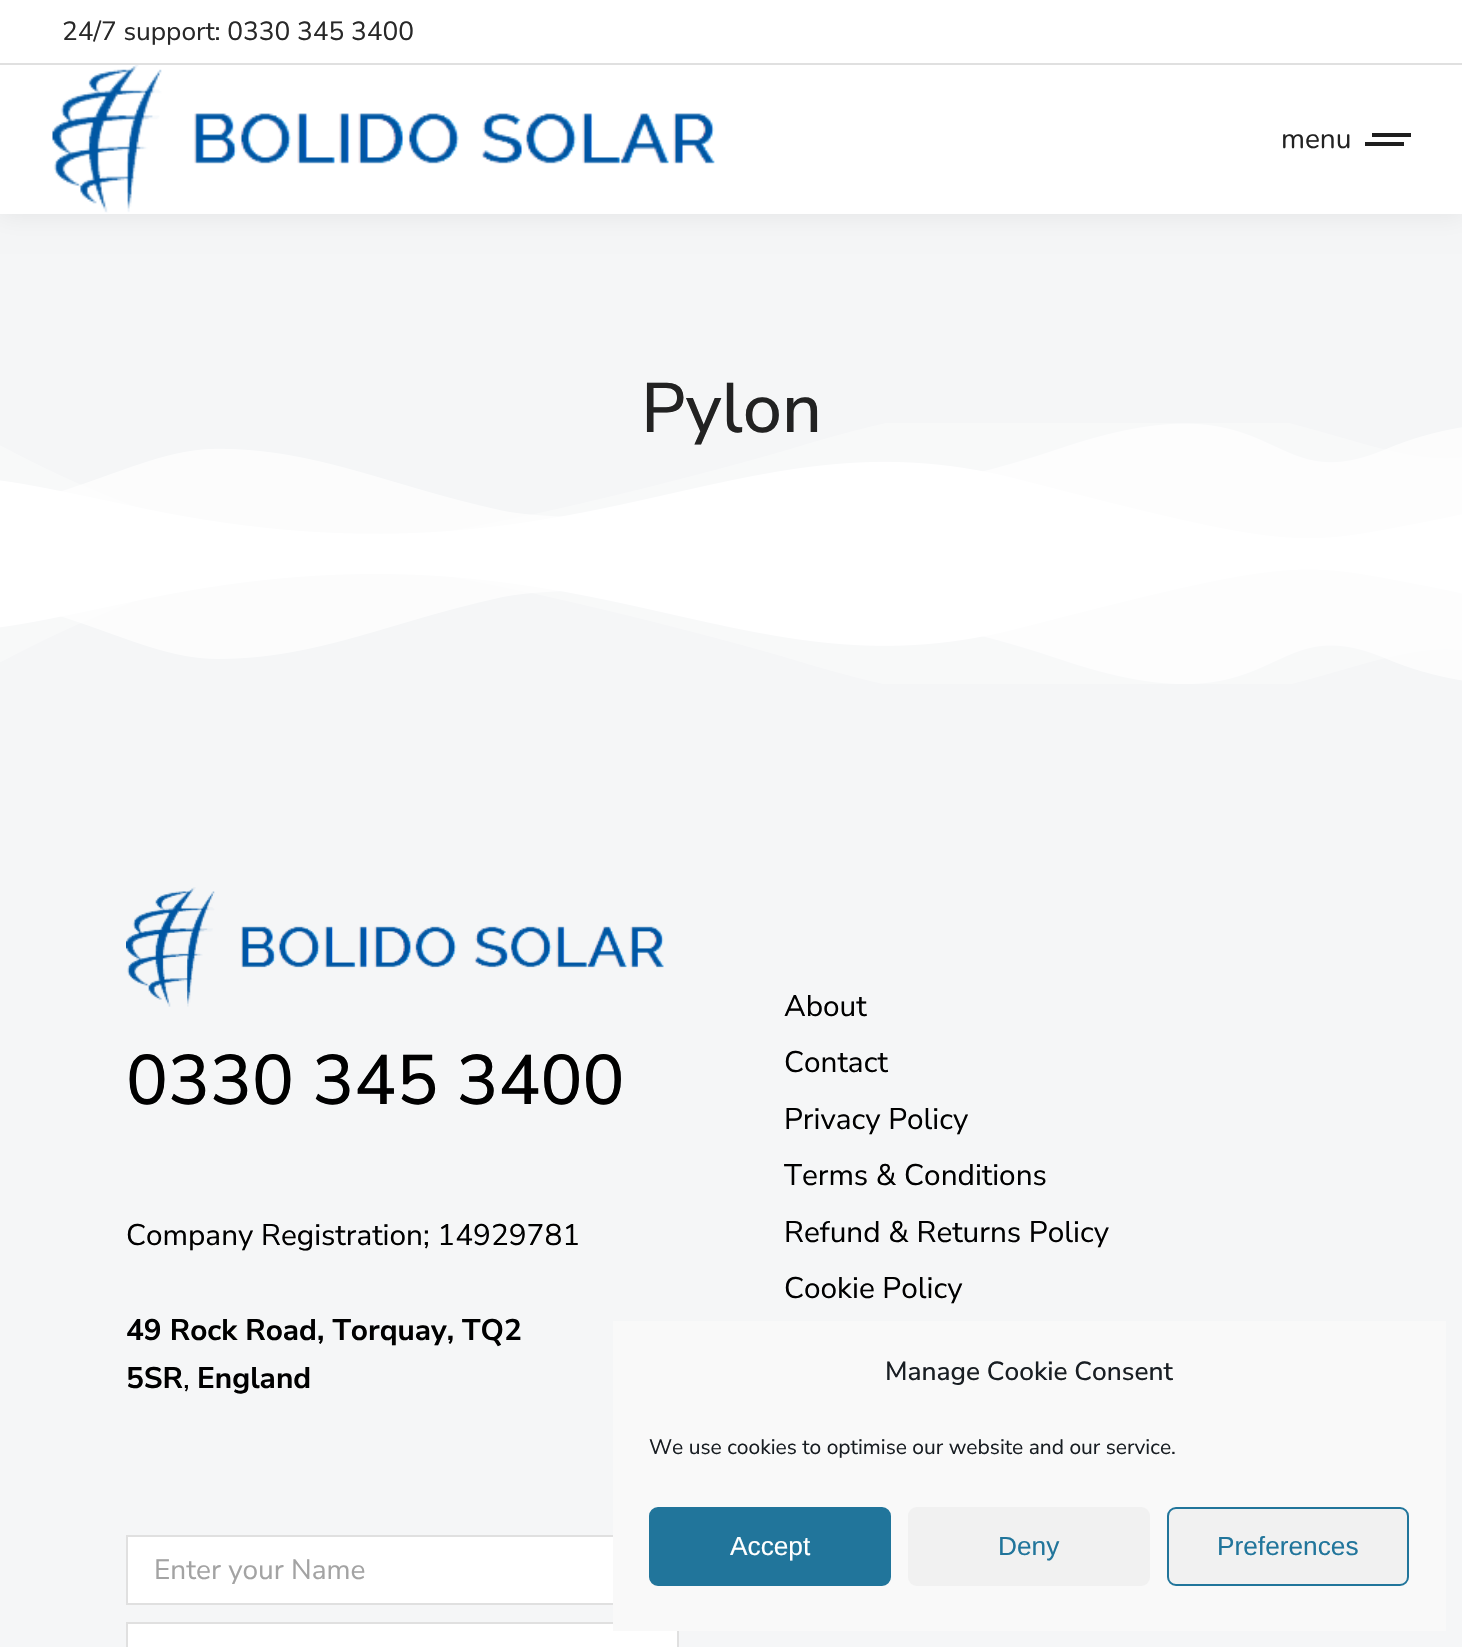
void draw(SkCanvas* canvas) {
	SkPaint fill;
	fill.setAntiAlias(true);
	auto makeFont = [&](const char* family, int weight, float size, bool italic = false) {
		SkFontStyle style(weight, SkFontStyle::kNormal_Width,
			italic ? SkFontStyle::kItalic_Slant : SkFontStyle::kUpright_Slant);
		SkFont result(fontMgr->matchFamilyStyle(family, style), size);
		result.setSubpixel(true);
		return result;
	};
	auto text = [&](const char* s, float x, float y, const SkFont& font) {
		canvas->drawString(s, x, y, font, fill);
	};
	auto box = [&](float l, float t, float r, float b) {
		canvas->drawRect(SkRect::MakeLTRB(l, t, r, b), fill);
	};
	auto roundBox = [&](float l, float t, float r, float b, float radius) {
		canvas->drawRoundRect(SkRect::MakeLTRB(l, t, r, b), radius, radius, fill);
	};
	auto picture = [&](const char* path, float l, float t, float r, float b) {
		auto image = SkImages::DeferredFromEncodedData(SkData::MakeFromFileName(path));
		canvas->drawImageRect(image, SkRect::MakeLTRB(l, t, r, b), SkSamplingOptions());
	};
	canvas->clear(0xFFFFFFFF);
	fill.setColor(0xFFF5F6F7);
	box(0, 214, 1462, 539);
	fill.setColor(0x12000000);
	fill.setMaskFilter(SkMaskFilter::MakeBlur(kNormal_SkBlurStyle, 13));
	canvas->drawRect(SkRect::MakeLTRB(-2, -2, 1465, 215), fill);
	fill.setMaskFilter(nullptr);
	fill.setColor(0xFFFFFFFF);
	box(0, 0, 1462, 214);
	fill.setColor(0xFFE0E0E0);
	box(0, 63, 1462, 65);
	picture("image0.png", 52, 65, 715, 213);
	fill.setColor(0xFF1E1E1E);
	box(1372, 133, 1411, 137);
	box(1365, 142, 1404, 146);
	picture("image1.png", 0, 423, 1462, 553);
	fill.setColor(0xFFF5F6F7);
	box(0, 569, 1462, 1647);
	picture("image2.png", 0, 555, 1462, 684);
	picture("image3.png", 126, 887, 664, 1007);
	fill.setColor(0xFFFFFFFF);
	box(128, 1537, 613, 1603);
	fill.setStyle(SkPaint::kStroke_Style);
	fill.setStrokeWidth(2);
	fill.setColor(0xFFE0E0E0);
	canvas->drawRect(SkRect::MakeLTRB(127, 1536, 678, 1604), fill);
	fill.setStyle(SkPaint::kFill_Style);
	fill.setColor(0xFFFFFFFF);
	canvas->drawRect(SkRect::MakeLTRB(127, 1623, 678, 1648), fill);
	fill.setStyle(SkPaint::kStroke_Style);
	fill.setColor(0xFFE0E0E0);
	canvas->drawRect(SkRect::MakeLTRB(127, 1623, 678, 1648), fill);
	fill.setStyle(SkPaint::kFill_Style);
	fill.setColor(0xFFF9F9F9);
	box(613, 1321, 1446, 1631);
	fill.setColor(0xFF21759B);
	canvas->drawRoundRect(SkRect::MakeLTRB(650, 1508, 890, 1585), 8, 8, fill);
	fill.setStyle(SkPaint::kStroke_Style);
	canvas->drawRoundRect(SkRect::MakeLTRB(650, 1508, 890, 1585), 8, 8, fill);
	fill.setStyle(SkPaint::kFill_Style);
	fill.setColor(0xFFF1F1F1);
	roundBox(908, 1507, 1150, 1586, 9);
	canvas->drawRoundRect(SkRect::MakeLTRB(1168, 1508, 1408, 1585), 8, 8, fill);
	fill.setStyle(SkPaint::kStroke_Style);
	fill.setColor(0xFF21759B);
	canvas->drawRoundRect(SkRect::MakeLTRB(1168, 1508, 1408, 1585), 8, 8, fill);
	auto font1 = makeFont("Nunito Sans", 400, 26.25f);
	fill.setStyle(SkPaint::kFill_Style);
	fill.setColor(0xFF282828);
	text("24/7 support: 0330 345 3400", 62, 40, font1);
	auto font2 = makeFont("Nunito", 400, 28);
	fill.setColor(0xFF222222);
	text("menu", 1281, 148, font2);
	auto font3 = makeFont("Nunito Sans", 500, 70);
	text("Pylon", 641, 432, font3);
	fill.setColor(0xFF000000);
	text("0330 345 3400", 126, 1104, font3);
	auto font4 = makeFont("Nunito Sans", 400, 29.75f);
	text("Company Registration; 14929781", 126, 1245, font4);
	auto font5 = makeFont("Nunito Sans", 700, 29.75f);
	text("49 Rock Road, Torquay, TQ2", 126, 1340, font5);
	text("5SR", 126, 1388, font5);
	text(",", 183, 1388, font4);
	text("England", 197, 1388, font5);
	text("About", 784, 1016, font4);
	text("Contact", 784, 1072, font4);
	text("Privacy Policy", 784, 1129, font4);
	text("Terms & Conditions", 784, 1185, font4);
	text("Refund & Returns Policy", 784, 1242, font4);
	text("Cookie Policy", 784, 1298, font4);
	auto font6 = makeFont("Nunito Sans", 400, 28);
	fill.setColor(0xFFA3A3A3);
	text("Enter your Name", 154, 1579, font6);
	auto font7 = makeFont("Nunito Sans", 500, 26.25f);
	fill.setColor(0xFF191E23);
	text("Manage Cookie Consent", 885, 1380, font7);
	auto font8 = makeFont("Nunito Sans", 400, 21);
	text("We use cookies to optimise our website and our service.", 649, 1454, font8);
	auto font9 = makeFont("Liberation Sans", 400, 26.25f);
	fill.setColor(0xFFFFFFFF);
	text("Accept", 730, 1555, font9);
	fill.setColor(0xFF21759B);
	text("Deny", 998, 1555, font9);
	text("Preferences", 1217, 1555, font9);
}
